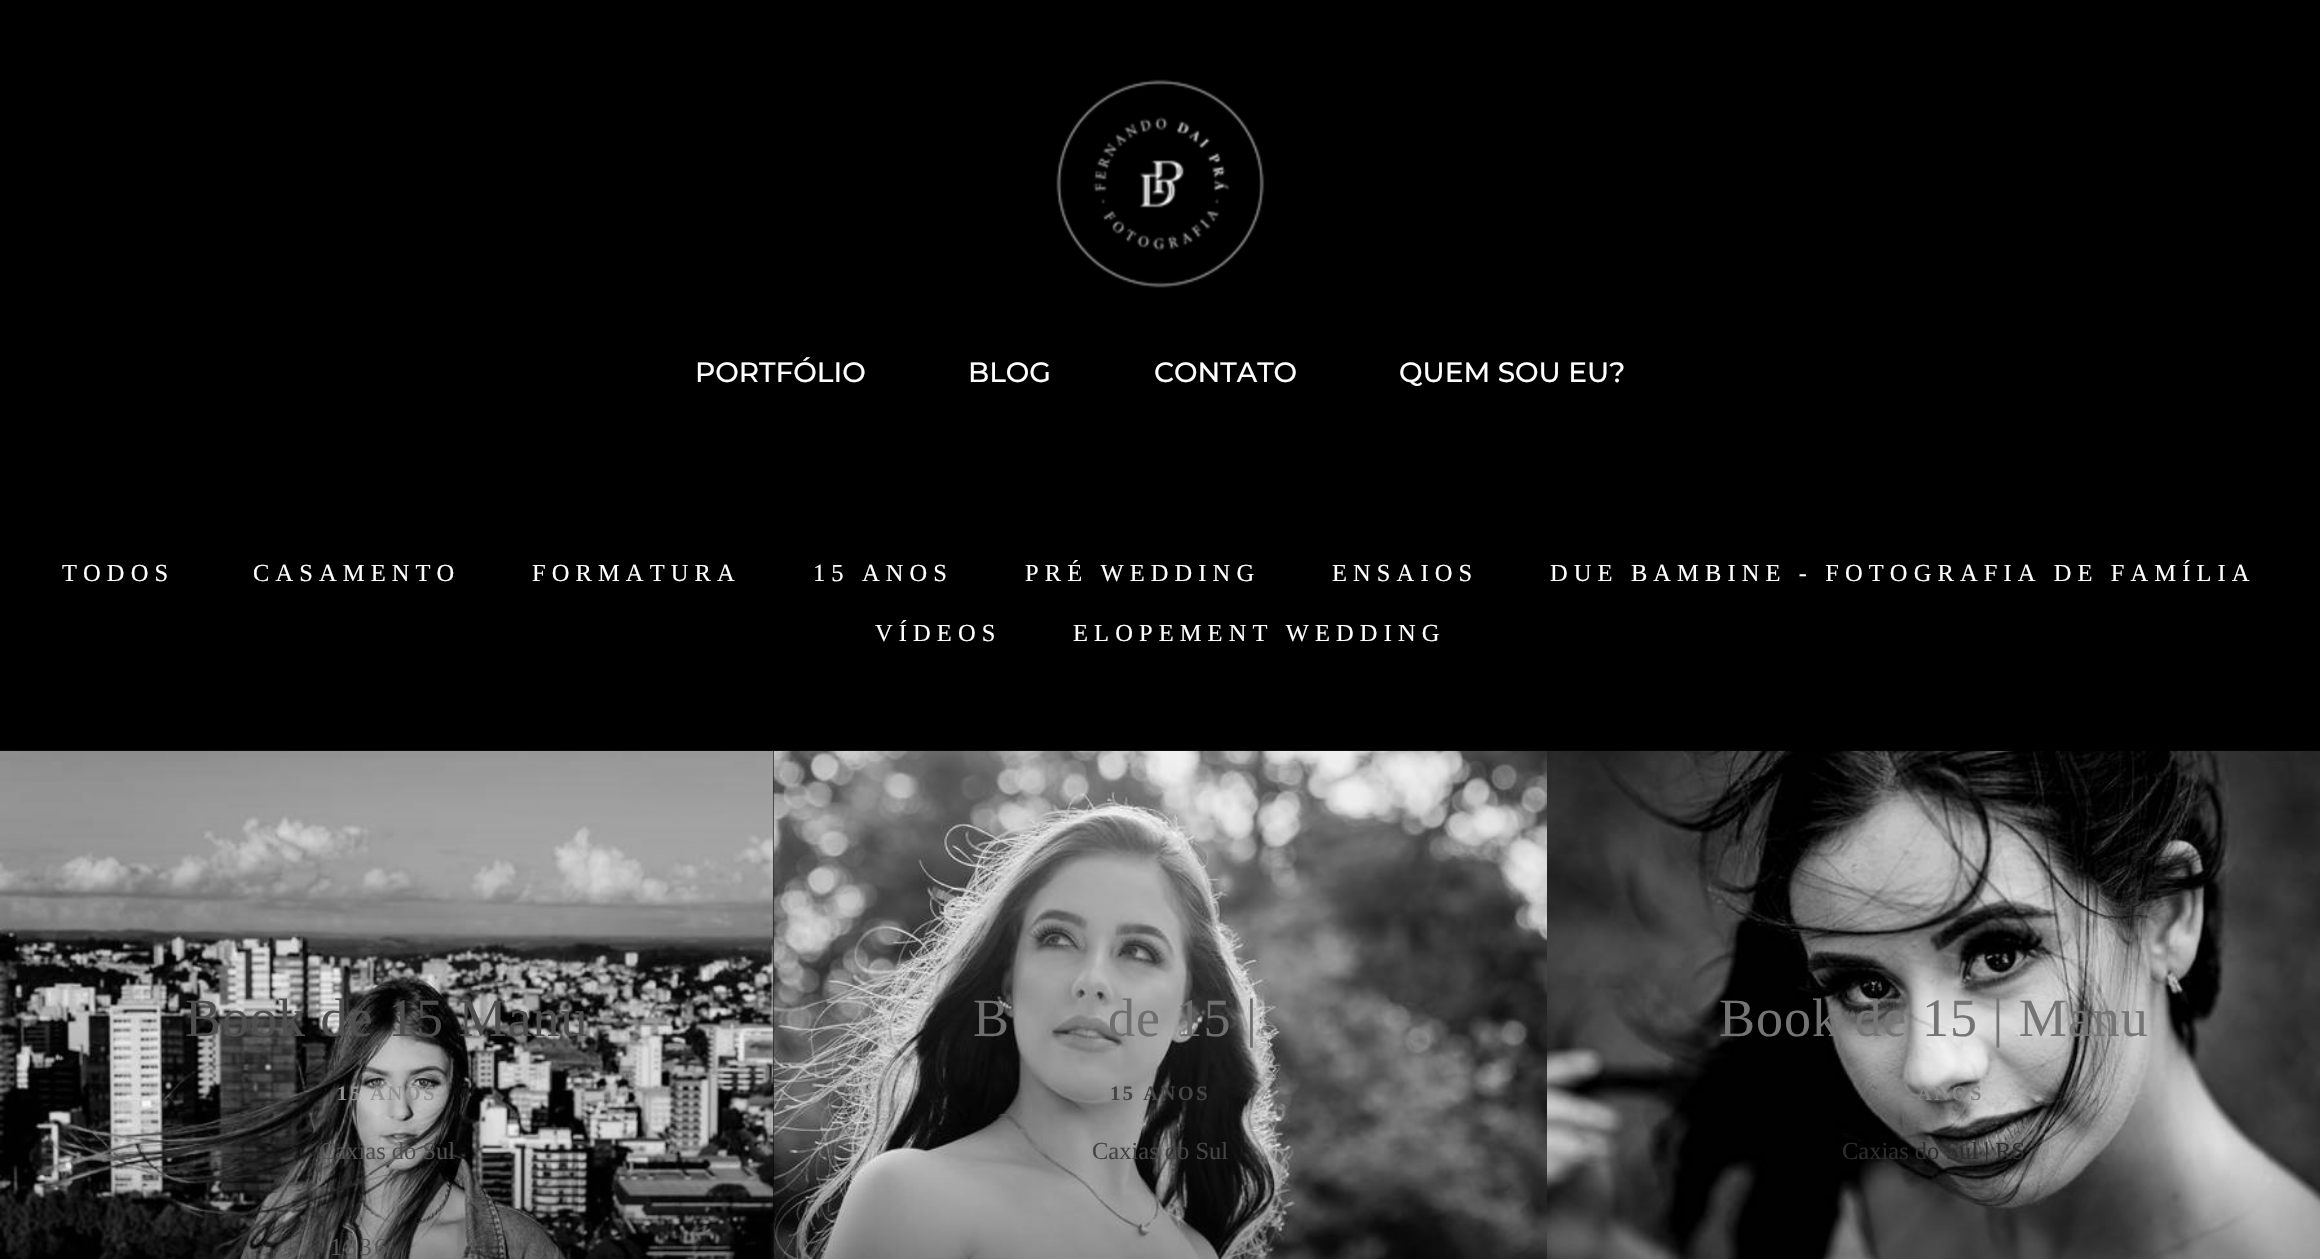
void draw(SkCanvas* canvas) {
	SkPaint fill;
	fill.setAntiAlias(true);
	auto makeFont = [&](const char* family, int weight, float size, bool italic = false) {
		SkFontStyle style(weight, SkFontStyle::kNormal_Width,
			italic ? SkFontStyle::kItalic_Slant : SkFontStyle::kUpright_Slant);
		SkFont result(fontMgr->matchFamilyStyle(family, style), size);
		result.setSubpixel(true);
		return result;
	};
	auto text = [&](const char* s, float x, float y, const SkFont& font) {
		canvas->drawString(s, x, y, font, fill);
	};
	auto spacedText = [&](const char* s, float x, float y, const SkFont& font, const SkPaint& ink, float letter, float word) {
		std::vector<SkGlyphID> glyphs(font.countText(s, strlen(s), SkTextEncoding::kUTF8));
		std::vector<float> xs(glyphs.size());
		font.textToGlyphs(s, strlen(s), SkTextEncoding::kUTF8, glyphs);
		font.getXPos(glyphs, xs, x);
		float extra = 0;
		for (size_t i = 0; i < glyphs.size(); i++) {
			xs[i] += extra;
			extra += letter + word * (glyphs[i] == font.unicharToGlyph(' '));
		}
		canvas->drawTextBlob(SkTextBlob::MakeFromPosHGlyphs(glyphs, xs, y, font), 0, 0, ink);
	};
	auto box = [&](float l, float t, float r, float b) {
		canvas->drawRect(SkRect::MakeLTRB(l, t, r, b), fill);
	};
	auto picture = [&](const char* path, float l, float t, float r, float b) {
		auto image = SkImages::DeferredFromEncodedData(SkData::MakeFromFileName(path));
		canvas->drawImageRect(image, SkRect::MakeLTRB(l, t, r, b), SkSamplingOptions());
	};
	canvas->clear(0xFF000000);
	picture("image0.png", 1056, 79, 1265, 288);
	picture("image1.png", 0, 750, 774, 1259);
	{
		const SkColor colors[] = {0x00000000, 0xF5000000};
		const float stops[] = {0.28f, 1};
		const SkPoint ends[] = {{387, 983}, {387, 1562}};
		fill.setShader(SkGradientShader::MakeLinear(ends, colors, stops, 2, SkTileMode::kClamp));
		fill.setAlpha(255);
	}
	box(0, 1154, 774, 1259);
	picture("image2.png", 773, 750, 1547, 1259);
	picture("image3.png", 1547, 750, 2320, 1259);
	auto font1 = makeFont("Montserrat", 500, 28);
	fill.setShader(nullptr);
	fill.setColor(0xFFFFFFFF);
	text("PORTFÓLIO", 695, 382, font1);
	text("BLOG", 968, 382, font1);
	text("CONTATO", 1154, 382, font1);
	text("QUEM SOU EU?", 1399, 382, font1);
	auto font2 = makeFont("Liberation Serif", 400, 24.5f);
	spacedText("TODOS", 62, 581, font2, fill, 6.1f, 0);
	spacedText("CASAMENTO", 253, 581, font2, fill, 6.1f, 0);
	spacedText("FORMATURA", 532, 581, font2, fill, 6.1f, 0);
	spacedText("15 ANOS", 813, 581, font2, fill, 6.1f, 0);
	spacedText("PRÉ WEDDING", 1025, 581, font2, fill, 6.1f, 0);
	spacedText("ENSAIOS", 1332, 581, font2, fill, 6.1f, 0);
	spacedText("DUE BAMBINE - FOTOGRAFIA DE FAMÍLIA", 1550, 581, font2, fill, 6.1f, 0);
	spacedText("VÍDEOS", 875, 641, font2, fill, 6.1f, 0);
	spacedText("ELOPEMENT WEDDING", 1073, 641, font2, fill, 6.1f, 0);
	auto font3 = makeFont("Liberation Serif", 400, 54);
	fill.setColor(0xFF4F4F4F);
	spacedText("Book de 15 Manu", 185, 1036, font3, fill, 1, 0);
	auto font4 = makeFont("Liberation Serif", 700, 20.5f);
	fill.setColor(0xFF919191);
	spacedText("15 ANOS", 337, 1100, font4, fill, 2.5f, 0);
	fill.setColor(0xFF4F4F4F);
	text("Caxias do Sul", 319, 1159, font2);
	fill.setColor(0xFF575757);
	spacedText("1836", 330, 1255, font2, fill, 2.5f, 0);
	fill.setColor(0xFF6E6E6E);
	spacedText("B", 973, 1036, font3, fill, 1, 0);
	spacedText("de 15 |", 1108, 1036, font3, fill, 1, 0);
	fill.setColor(0xFF444444);
	spacedText("15 ANOS", 1110, 1100, font4, fill, 2.5f, 0);
	text("Caxias do Sul", 1092, 1159, font2);
	fill.setColor(0xFF747474);
	spacedText("Book de 15 | Manu", 1719, 1036, font3, fill, 1, 0);
	fill.setColor(0xFF838383);
	spacedText("ANOS", 1917, 1100, font4, fill, 2.5f, 0);
	fill.setColor(0xFF2D2D2D);
	text("Caxias do Sul | RS", 1842, 1159, font2);
}
